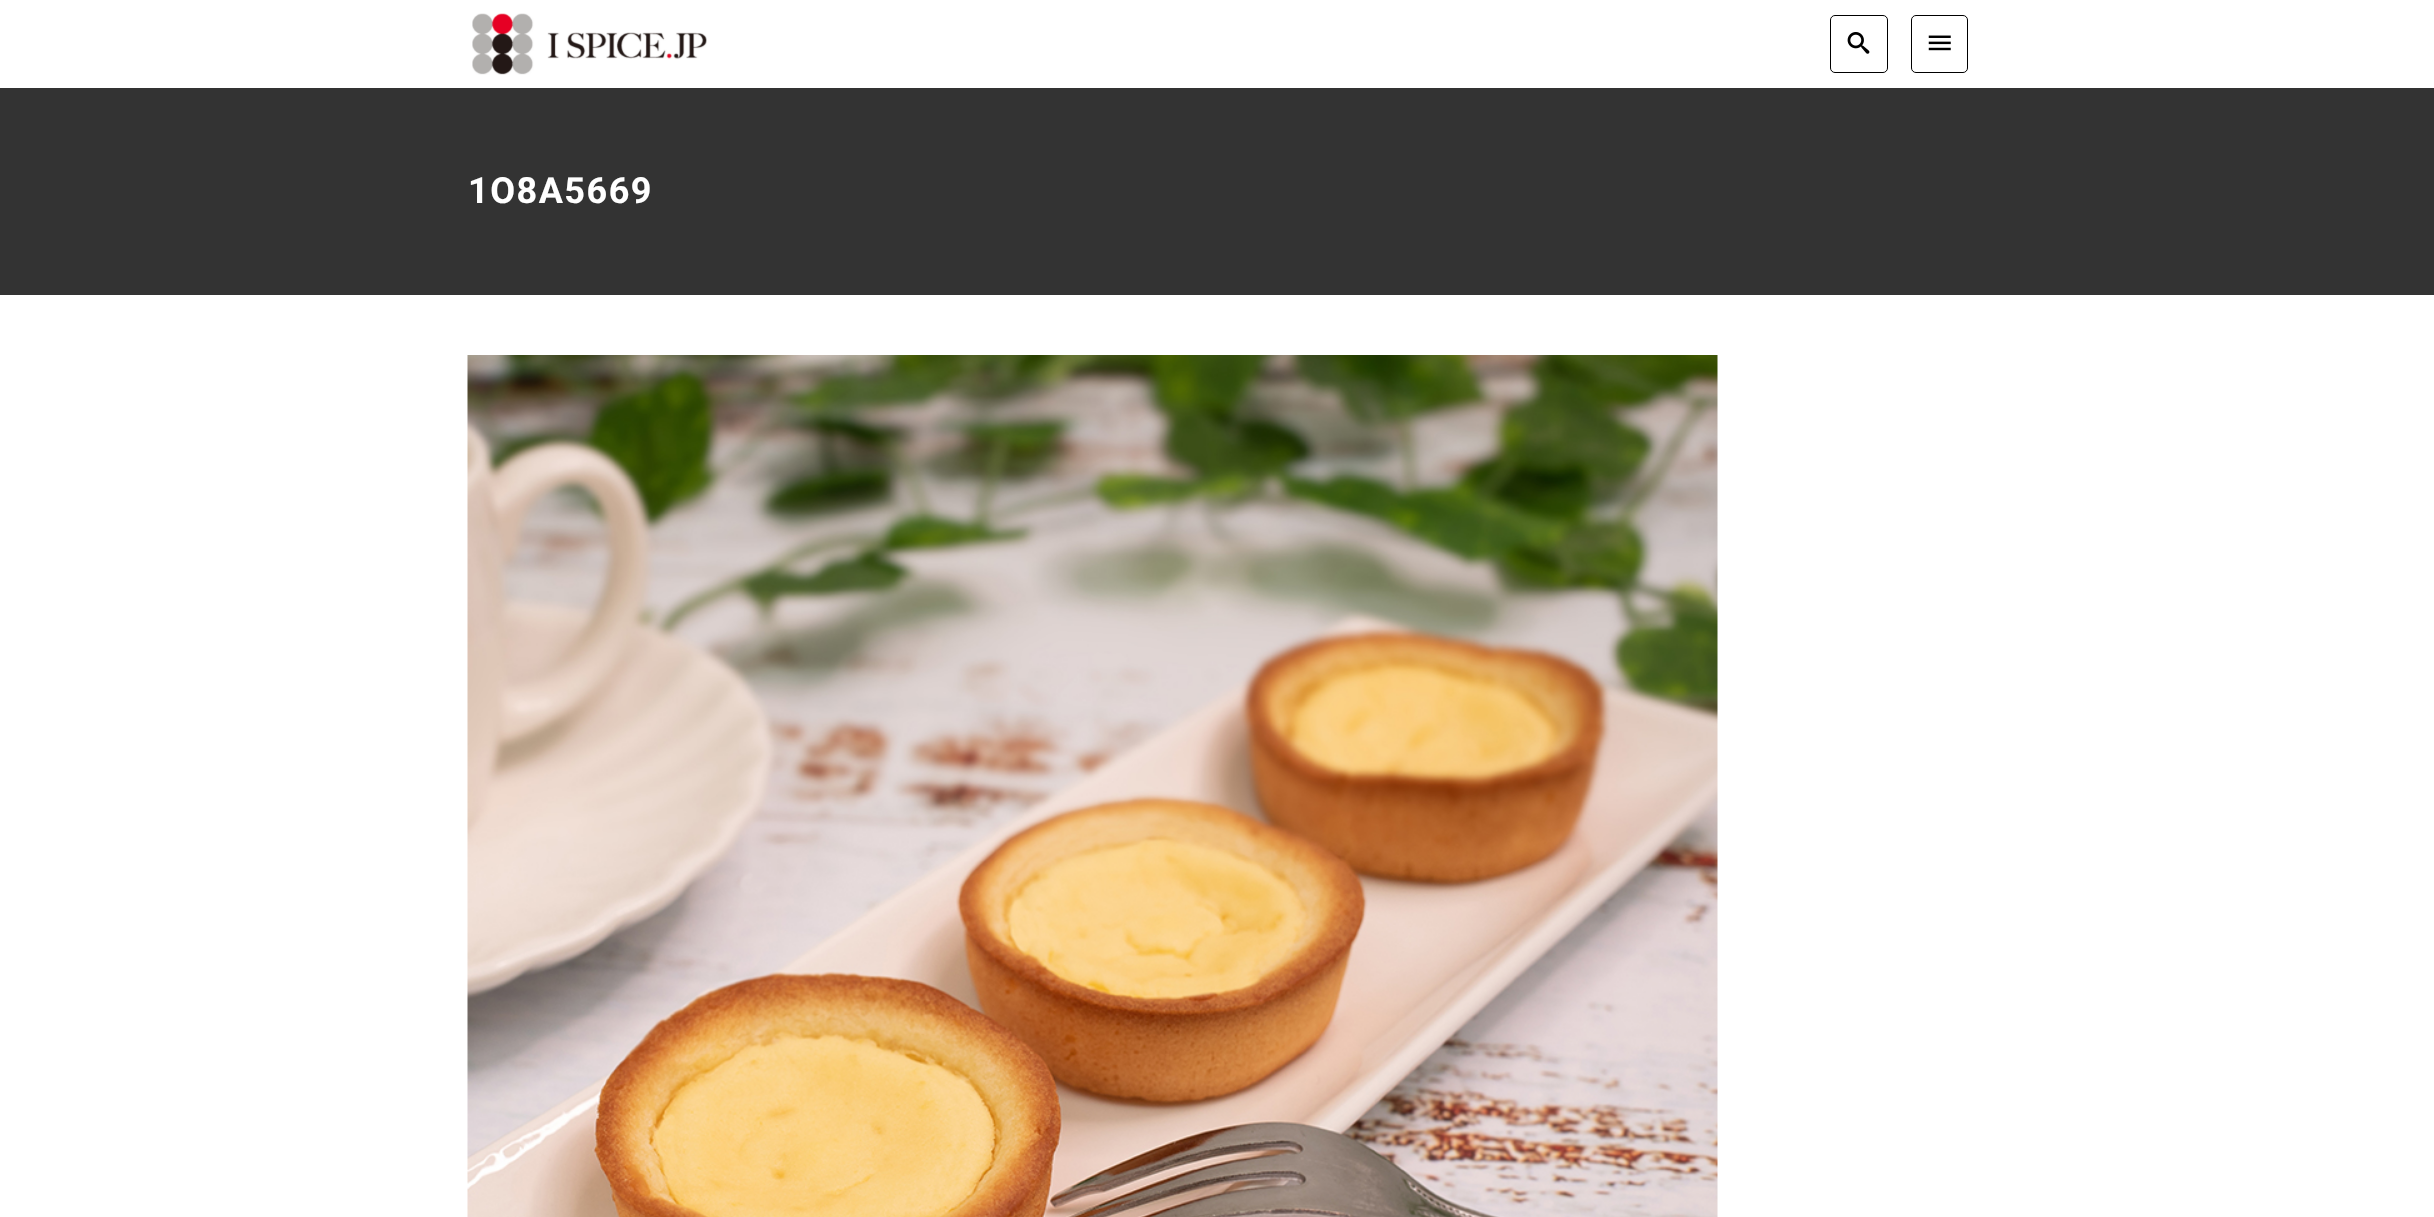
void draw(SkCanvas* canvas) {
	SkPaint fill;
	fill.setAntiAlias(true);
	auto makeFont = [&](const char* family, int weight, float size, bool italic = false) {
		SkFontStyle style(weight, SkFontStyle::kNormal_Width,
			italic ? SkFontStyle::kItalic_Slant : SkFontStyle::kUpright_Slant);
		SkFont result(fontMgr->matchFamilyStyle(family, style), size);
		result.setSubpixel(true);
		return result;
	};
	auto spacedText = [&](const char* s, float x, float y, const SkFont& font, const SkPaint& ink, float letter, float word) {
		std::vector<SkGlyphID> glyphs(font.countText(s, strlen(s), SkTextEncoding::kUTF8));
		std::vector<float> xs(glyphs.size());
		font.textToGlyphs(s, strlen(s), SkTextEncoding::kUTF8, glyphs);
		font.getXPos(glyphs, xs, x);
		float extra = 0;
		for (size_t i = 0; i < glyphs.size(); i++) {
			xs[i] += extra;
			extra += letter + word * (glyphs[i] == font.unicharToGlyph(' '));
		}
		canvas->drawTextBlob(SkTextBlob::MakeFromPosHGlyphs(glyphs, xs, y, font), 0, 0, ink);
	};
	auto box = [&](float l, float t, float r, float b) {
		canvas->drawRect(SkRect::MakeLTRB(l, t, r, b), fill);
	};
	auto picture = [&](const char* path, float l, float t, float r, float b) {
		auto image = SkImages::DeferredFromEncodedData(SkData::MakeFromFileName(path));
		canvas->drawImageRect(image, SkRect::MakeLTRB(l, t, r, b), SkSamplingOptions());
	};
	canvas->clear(0xFFFFFFFF);
	picture("image0.png", 472, 13, 707, 75);
	fill.setStyle(SkPaint::kStroke_Style);
	fill.setStrokeWidth(1);
	fill.setColor(0xFF000000);
	canvas->drawRoundRect(SkRect::MakeLTRB(1830.5f, 15.5f, 1887.5f, 72.5f), 4.5f, 4.5f, fill);
	picture("image1.png", 1847, 32, 1870, 54);
	canvas->drawRoundRect(SkRect::MakeLTRB(1911.5f, 15.5f, 1967.5f, 72.5f), 4.5f, 4.5f, fill);
	picture("image2.png", 1928, 35, 1951, 51);
	fill.setStyle(SkPaint::kFill_Style);
	fill.setColor(0xFF333333);
	box(0, 88, 2434, 295);
	picture("image3.png", 467, 355, 1718, 1217);
	auto font1 = makeFont("Roboto", 700, 36);
	fill.setColor(0xFFFFFFFF);
	spacedText("1O8A5669", 468, 203, font1, fill, 1.5f, 0);
}
